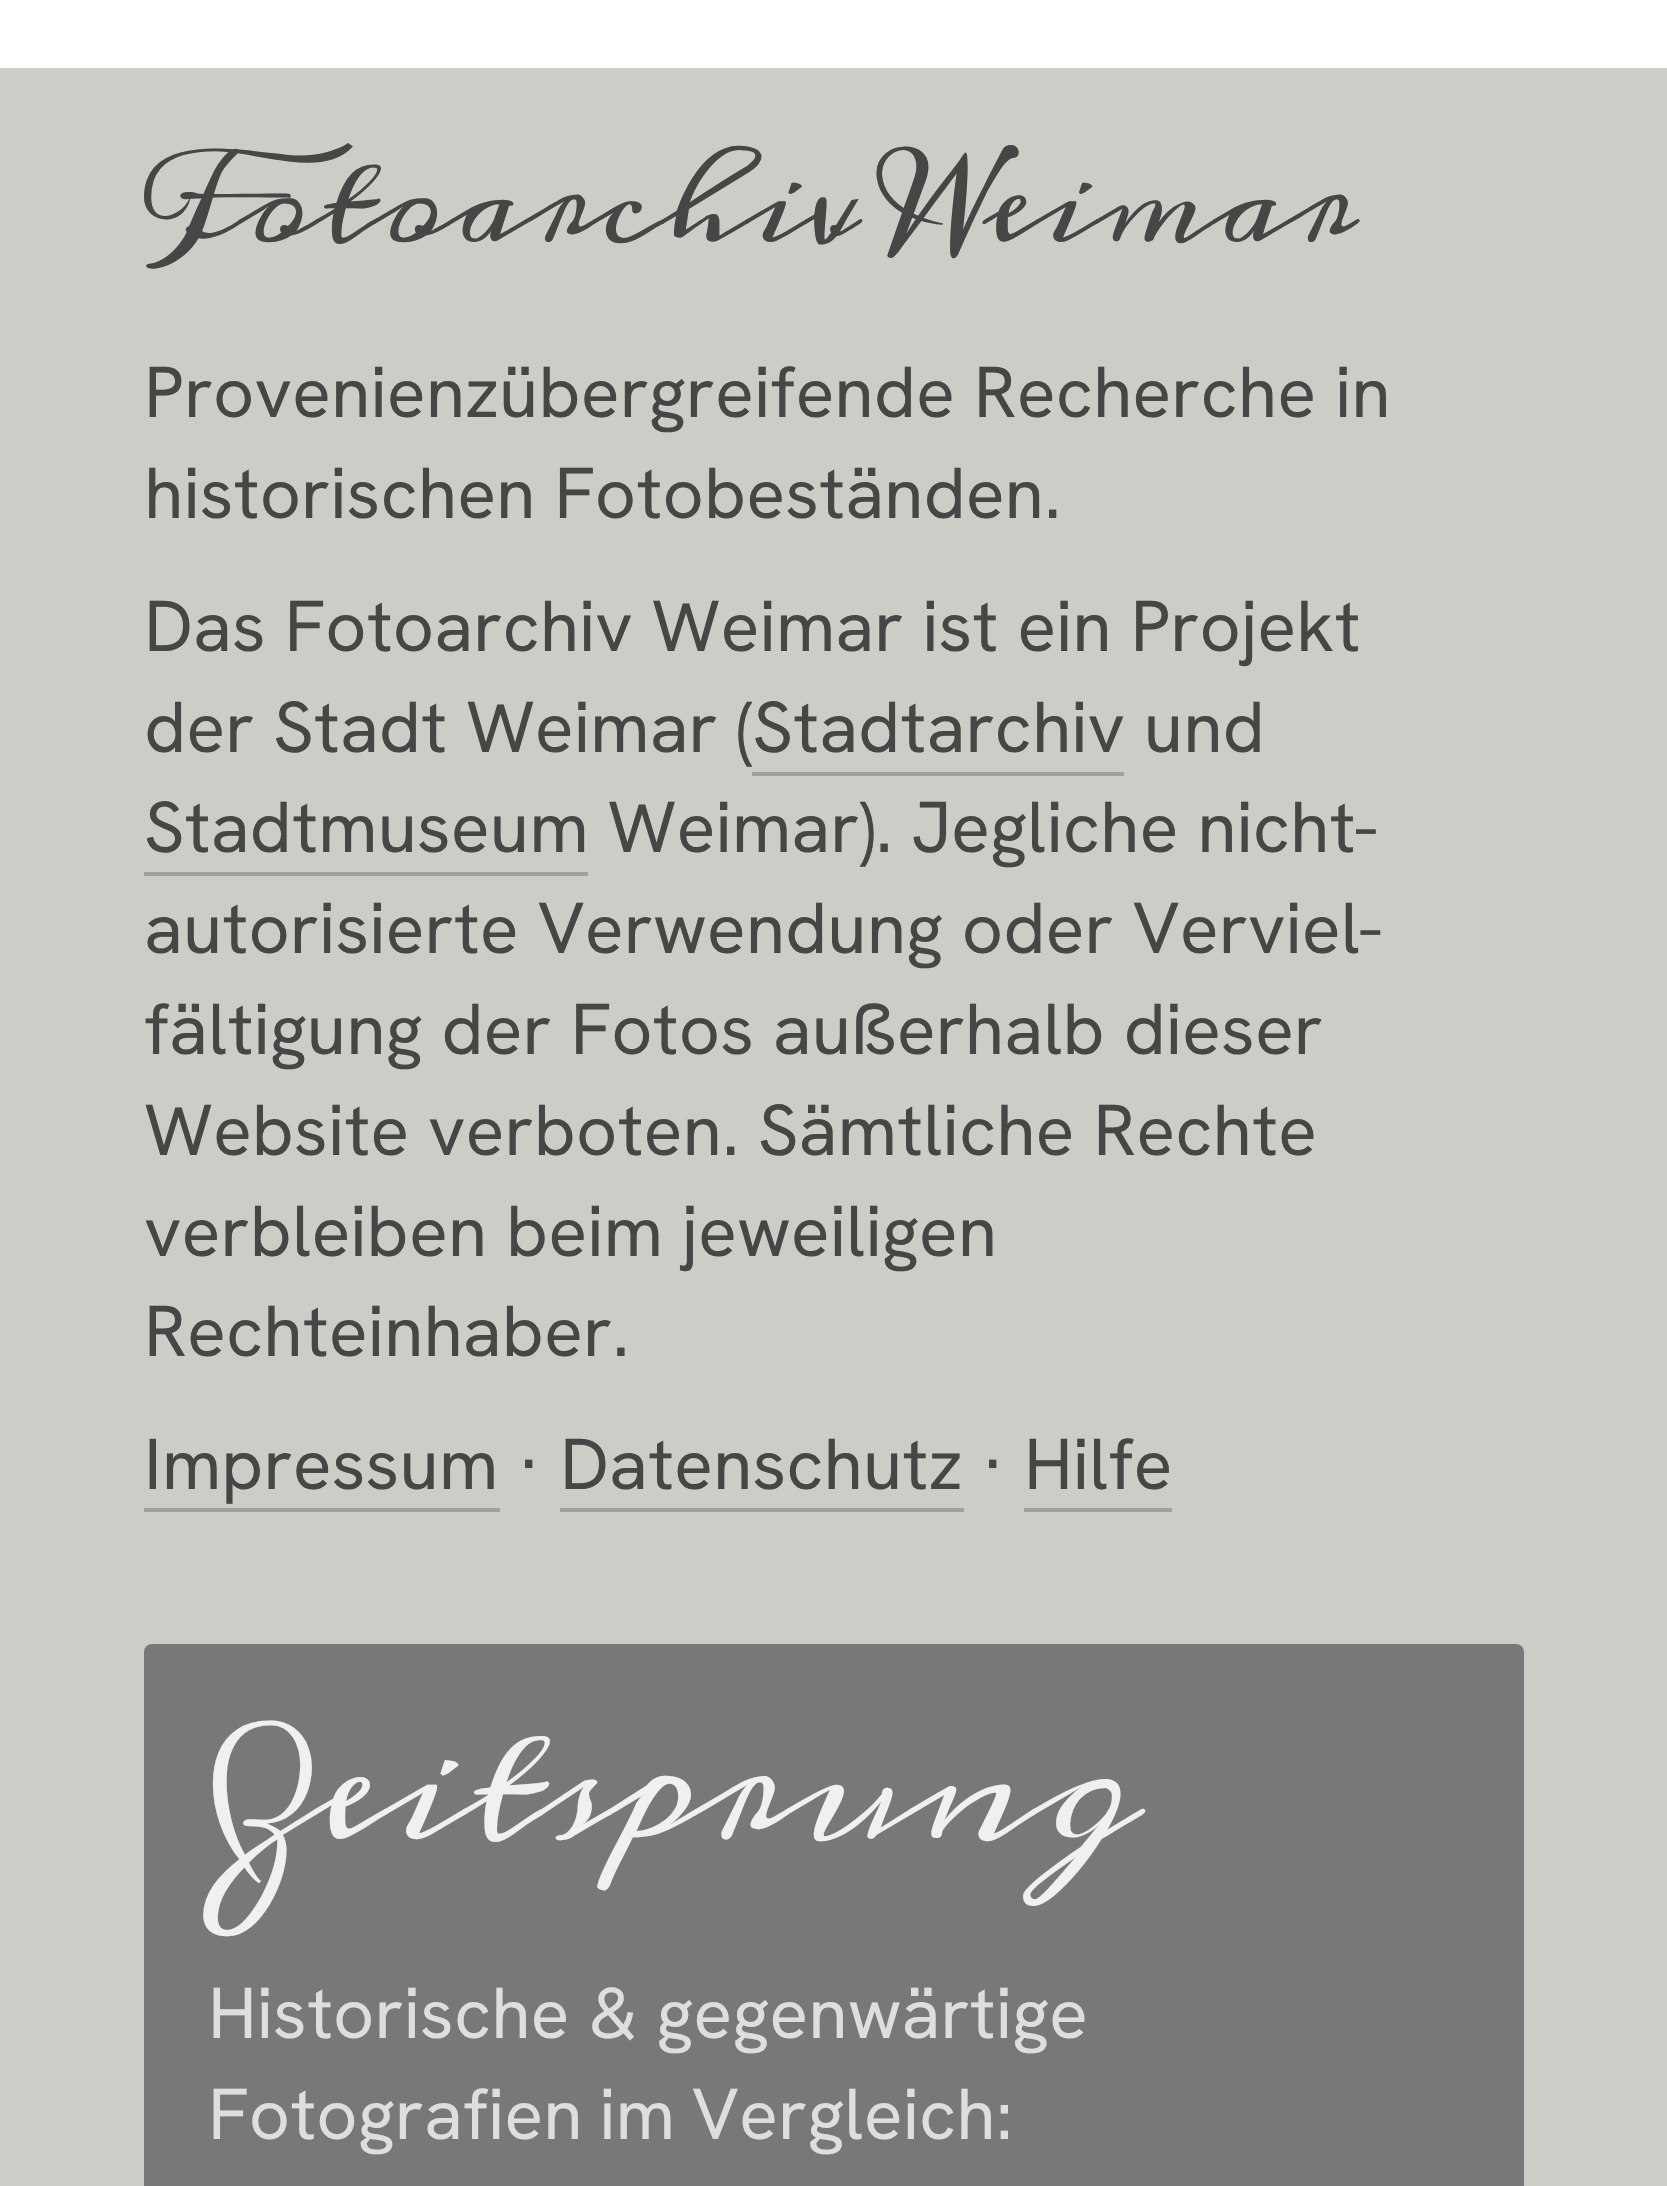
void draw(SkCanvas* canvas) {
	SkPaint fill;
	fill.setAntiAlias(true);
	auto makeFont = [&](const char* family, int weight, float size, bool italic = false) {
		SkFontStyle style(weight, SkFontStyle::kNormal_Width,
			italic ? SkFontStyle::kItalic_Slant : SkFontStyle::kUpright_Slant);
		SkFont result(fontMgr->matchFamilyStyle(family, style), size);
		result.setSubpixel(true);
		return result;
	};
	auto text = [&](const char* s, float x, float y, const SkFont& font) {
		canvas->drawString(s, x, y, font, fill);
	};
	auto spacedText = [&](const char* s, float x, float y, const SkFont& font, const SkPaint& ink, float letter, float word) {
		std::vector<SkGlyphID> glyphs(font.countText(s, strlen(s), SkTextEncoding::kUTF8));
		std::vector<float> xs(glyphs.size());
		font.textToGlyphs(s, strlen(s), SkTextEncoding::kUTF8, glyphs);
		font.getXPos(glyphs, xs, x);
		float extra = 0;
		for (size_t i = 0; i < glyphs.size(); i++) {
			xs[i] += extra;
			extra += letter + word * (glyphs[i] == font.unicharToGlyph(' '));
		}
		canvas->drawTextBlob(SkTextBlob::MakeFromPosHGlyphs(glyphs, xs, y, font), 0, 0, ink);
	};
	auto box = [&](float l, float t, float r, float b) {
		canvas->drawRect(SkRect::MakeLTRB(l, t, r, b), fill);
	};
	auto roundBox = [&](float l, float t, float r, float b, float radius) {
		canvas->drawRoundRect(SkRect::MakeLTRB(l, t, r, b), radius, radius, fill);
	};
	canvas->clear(0xFFCDCDC8);
	fill.setColor(0xFFFFFFFF);
	box(0, 0, 1667, 68);
	fill.setColor(0xFFA0A0A0);
	box(752, 772, 1124, 776);
	box(144, 872, 588, 876);
	box(144, 1508, 500, 1512);
	box(560, 1508, 964, 1512);
	box(1024, 1508, 1172, 1512);
	fill.setColor(0xFF787878);
	roundBox(144, 1644, 1524, 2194, 8);
	auto font1 = makeFont("Meddon", 400, 108);
	fill.setColor(0xFF464646);
	text("Fotoarchiv", 144, 241, font1);
	text("Weimar", 887, 241, font1);
	auto font2 = makeFont("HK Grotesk", 400, 72);
	text("Provenienzübergreifende Recherche in", 144, 417, font2);
	text("historischen Fotobeständen.", 144, 518, font2);
	text("Das Fotoarchiv Weimar ist ein Projekt", 144, 651, font2);
	text("der Stadt Weimar (Stadtarchiv und", 144, 752, font2);
	text("Stadtmuseum Weimar). Jegliche nicht-", 144, 852, font2);
	text("autorisierte Verwendung oder Verviel-", 144, 953, font2);
	text("fältigung der Fotos außerhalb dieser", 144, 1054, font2);
	text("Website verboten. Sämtliche Rechte", 144, 1155, font2);
	text("verbleiben beim jeweiligen", 144, 1256, font2);
	text("Rechteinhaber.", 144, 1356, font2);
	text("Impressum · Datenschutz · Hilfe", 144, 1489, font2);
	auto font3 = makeFont("Meddon", 400, 144);
	fill.setColor(0xFFF0F0F0);
	text("Zeitsprung", 208, 1838, font3);
	fill.setColor(0xFFDEDEDE);
	text("Historische & gegenwärtige", 208, 2038, font2);
	spacedText("Fotografien im Vergleich:", 208, 2139, font2, fill, 0, -2);
}
